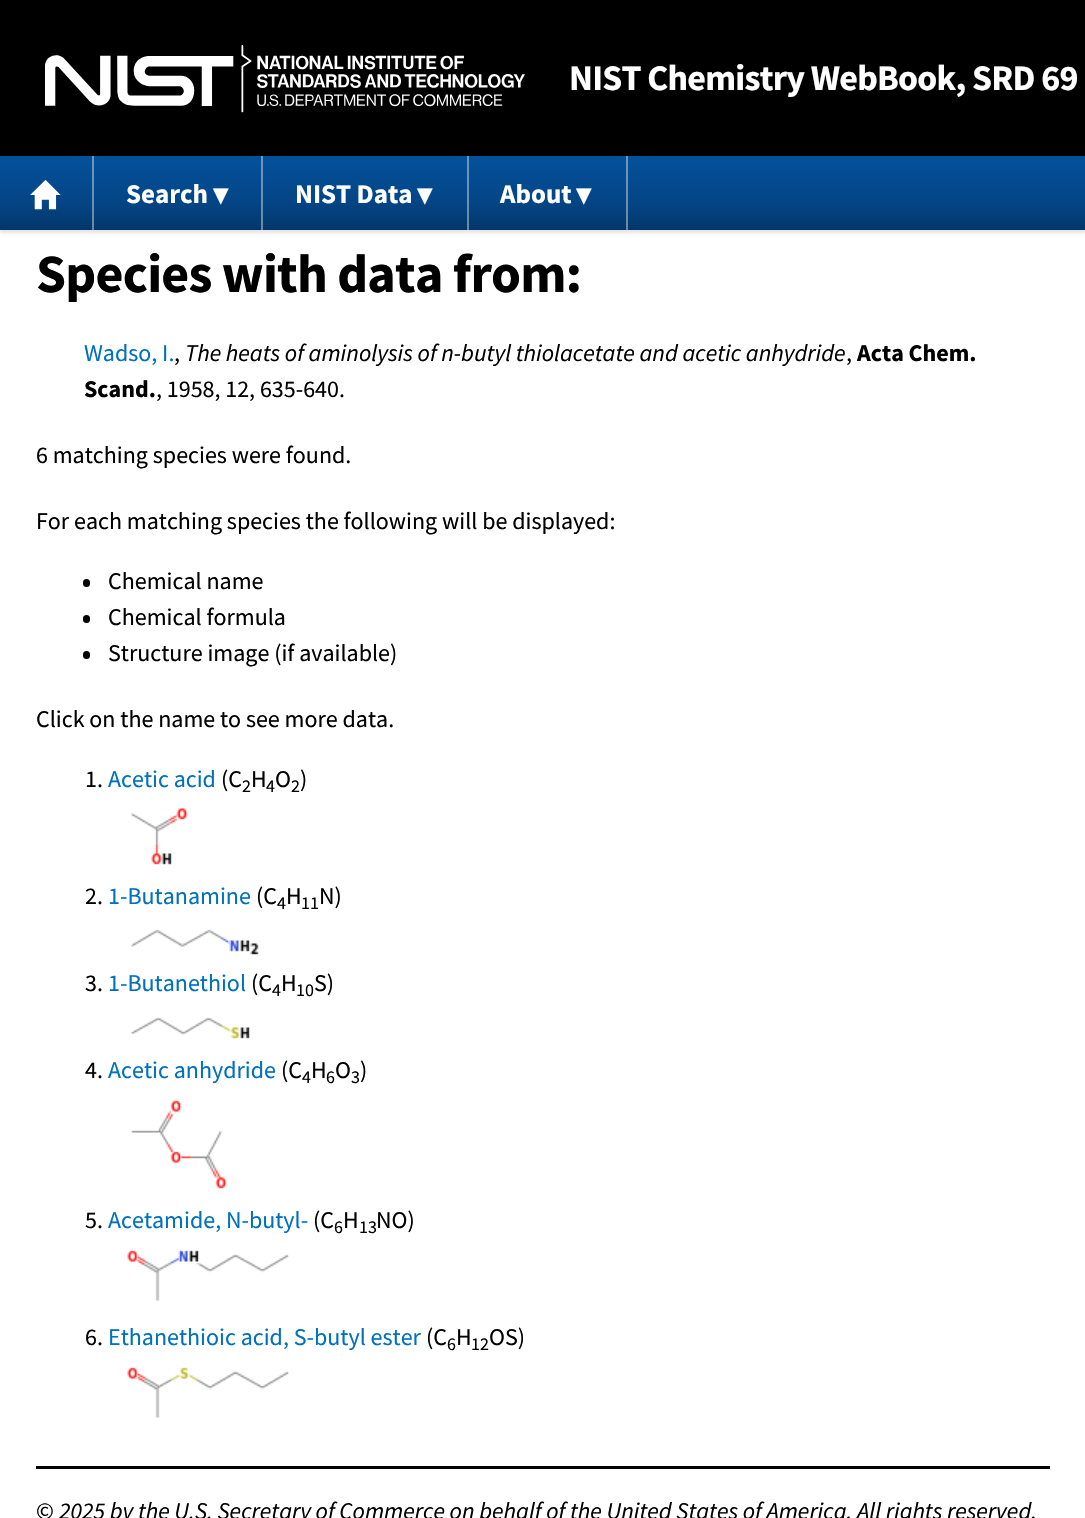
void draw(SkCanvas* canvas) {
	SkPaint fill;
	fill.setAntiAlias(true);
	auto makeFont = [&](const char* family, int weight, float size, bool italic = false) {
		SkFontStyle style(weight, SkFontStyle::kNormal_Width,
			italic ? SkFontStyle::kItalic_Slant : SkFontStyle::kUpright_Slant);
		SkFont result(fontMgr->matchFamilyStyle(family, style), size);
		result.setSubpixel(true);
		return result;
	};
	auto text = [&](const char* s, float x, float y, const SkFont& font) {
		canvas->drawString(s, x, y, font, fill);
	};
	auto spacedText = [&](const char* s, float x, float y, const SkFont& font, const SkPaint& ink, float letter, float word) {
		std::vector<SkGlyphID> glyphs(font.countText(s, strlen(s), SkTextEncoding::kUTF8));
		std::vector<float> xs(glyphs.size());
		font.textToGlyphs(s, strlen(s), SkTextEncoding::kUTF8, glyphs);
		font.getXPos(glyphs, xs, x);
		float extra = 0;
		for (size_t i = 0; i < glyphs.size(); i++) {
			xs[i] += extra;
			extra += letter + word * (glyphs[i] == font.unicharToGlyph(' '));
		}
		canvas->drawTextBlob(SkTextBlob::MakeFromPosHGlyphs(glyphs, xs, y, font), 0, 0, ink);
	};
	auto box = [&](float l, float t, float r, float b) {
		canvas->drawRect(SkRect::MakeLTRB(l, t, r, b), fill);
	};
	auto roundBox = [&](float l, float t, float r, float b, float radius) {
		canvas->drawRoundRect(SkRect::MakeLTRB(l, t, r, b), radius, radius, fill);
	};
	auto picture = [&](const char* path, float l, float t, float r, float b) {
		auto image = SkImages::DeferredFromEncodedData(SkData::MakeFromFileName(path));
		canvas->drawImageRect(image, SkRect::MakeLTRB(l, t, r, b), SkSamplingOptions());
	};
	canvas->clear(0xFFFFFFFF);
	fill.setColor(0x1A000000);
	fill.setMaskFilter(SkMaskFilter::MakeBlur(kNormal_SkBlurStyle, 1.5f));
	canvas->drawRect(SkRect::MakeLTRB(0, 159, 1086, 233), fill);
	fill.setMaskFilter(nullptr);
	fill.setColor(0xFF000000);
	box(0, 0, 1085, 156);
	picture("image0.png", 45, 45, 525, 113);
	{
		const SkColor colors[] = {0xFF04519B, 0xFF044687, 0xFF033769};
		const float stops[] = {0, 0.6f, 1};
		const SkPoint ends[] = {{543, 156}, {543, 230}};
		fill.setShader(SkGradientShader::MakeLinear(ends, colors, stops, 3, SkTileMode::kClamp));
		fill.setAlpha(255);
	}
	box(0, 156, 1085, 230);
	fill.setShader(nullptr);
	fill.setColor(0x66FFFFFF);
	box(92, 156, 94, 230);
	picture("image1.png", 30, 180, 61, 210);
	box(261, 156, 263, 230);
	box(467, 156, 469, 230);
	box(626, 156, 628, 230);
	fill.setColor(0xFF000000);
	roundBox(83, 579, 90, 587, 3.5f);
	roundBox(83, 615, 90, 623, 3.5f);
	roundBox(83, 651, 90, 659, 3.5f);
	picture("image2.png", 130, 808, 188, 865);
	picture("image3.png", 130, 929, 259, 955);
	picture("image4.png", 130, 1017, 250, 1039);
	picture("image5.png", 130, 1100, 227, 1189);
	picture("image6.png", 127, 1250, 289, 1301);
	picture("image7.png", 127, 1367, 289, 1418);
	box(36, 1466, 1050, 1469);
	auto font1 = makeFont("Source Sans Pro", 700, 36);
	fill.setColor(0xFFFFFFFF);
	spacedText("NIST Chemistry WebBook, SRD 69", 569, 90, font1, fill, -0.75f, 0);
	auto font2 = makeFont("Source Sans Pro", 700, 27);
	text("Search", 126, 203, font2);
	auto font3 = makeFont("Source Sans Pro", 700, 20);
	text("▼", 212, 203, font3);
	text("NIST Data", 295, 203, font2);
	text("▼", 416, 203, font3);
	text("About", 500, 203, font2);
	text("▼", 575, 203, font3);
	auto font4 = makeFont("Source Sans Pro", 700, 54);
	fill.setColor(0xFF000000);
	spacedText("Species with data from:", 36, 292, font4, fill, -0.75f, 0);
	auto font5 = makeFont("Source Sans Pro", 400, 24);
	fill.setColor(0xFF0071BC);
	text("Wadso, I.", 84, 361, font5);
	fill.setColor(0xFF000000);
	text(",", 174, 361, font5);
	auto font6 = makeFont("Source Sans Pro", 400, 24, true);
	text("The heats of aminolysis of n-butyl thiolacetate and acetic anhydride", 185, 361, font6);
	text(",", 846, 361, font5);
	auto font7 = makeFont("Source Sans Pro", 700, 24);
	text("Acta Chem.", 857, 361, font7);
	text("Scand.", 84, 397, font7);
	text(", 1958, 12, 635-640.", 156, 397, font5);
	text("6 matching species were found.", 36, 463, font5);
	text("For each matching species the following will be displayed:", 36, 529, font5);
	text("Chemical name", 108, 589, font5);
	text("Chemical formula", 108, 625, font5);
	text("Structure image (if available)", 108, 661, font5);
	text("Click on the name to see more data.", 36, 727, font5);
	text("1.", 85, 787, font5);
	fill.setColor(0xFF0071BC);
	text("Acetic acid", 108, 787, font5);
	fill.setColor(0xFF000000);
	text("(C", 221, 787, font5);
	auto font8 = makeFont("Source Sans Pro", 400, 18);
	text("2", 242, 792, font8);
	text("H", 251, 787, font5);
	text("4", 266, 792, font8);
	text("O", 275, 787, font5);
	text("2", 291, 792, font8);
	text(")", 300, 787, font5);
	text("2.", 85, 904, font5);
	fill.setColor(0xFF0071BC);
	text("1-Butanamine", 108, 904, font5);
	fill.setColor(0xFF000000);
	text("(C", 256, 904, font5);
	text("4", 277, 909, font8);
	text("H", 286, 904, font5);
	text("11", 301, 909, font8);
	text("N)", 319, 904, font5);
	text("3.", 85, 991, font5);
	fill.setColor(0xFF0071BC);
	text("1-Butanethiol", 108, 991, font5);
	fill.setColor(0xFF000000);
	text("(C", 251, 991, font5);
	text("4", 272, 996, font8);
	text("H", 281, 991, font5);
	text("10", 296, 996, font8);
	text("S)", 314, 991, font5);
	text("4.", 85, 1078, font5);
	fill.setColor(0xFF0071BC);
	text("Acetic anhydride", 108, 1078, font5);
	fill.setColor(0xFF000000);
	text("(C", 281, 1078, font5);
	text("4", 302, 1083, font8);
	text("H", 311, 1078, font5);
	text("6", 326, 1083, font8);
	text("O", 335, 1078, font5);
	text("3", 351, 1083, font8);
	text(")", 360, 1078, font5);
	text("5.", 85, 1228, font5);
	fill.setColor(0xFF0071BC);
	text("Acetamide, N-butyl-", 108, 1228, font5);
	fill.setColor(0xFF000000);
	text("(C", 313, 1228, font5);
	text("6", 334, 1233, font8);
	text("H", 343, 1228, font5);
	text("13", 359, 1233, font8);
	text("NO)", 376, 1228, font5);
	text("6.", 85, 1345, font5);
	fill.setColor(0xFF0071BC);
	text("Ethanethioic acid, S-butyl ester", 108, 1345, font5);
	fill.setColor(0xFF000000);
	text("(C", 426, 1345, font5);
	text("6", 447, 1350, font8);
	text("H", 456, 1345, font5);
	text("12", 471, 1350, font8);
	text("OS)", 489, 1345, font5);
	text("©", 36, 1519, font5);
	text("2025 by the U.S. Secretary of Commerce on behalf of the United States of America. All rights reserved.", 59, 1519, font6);
}
